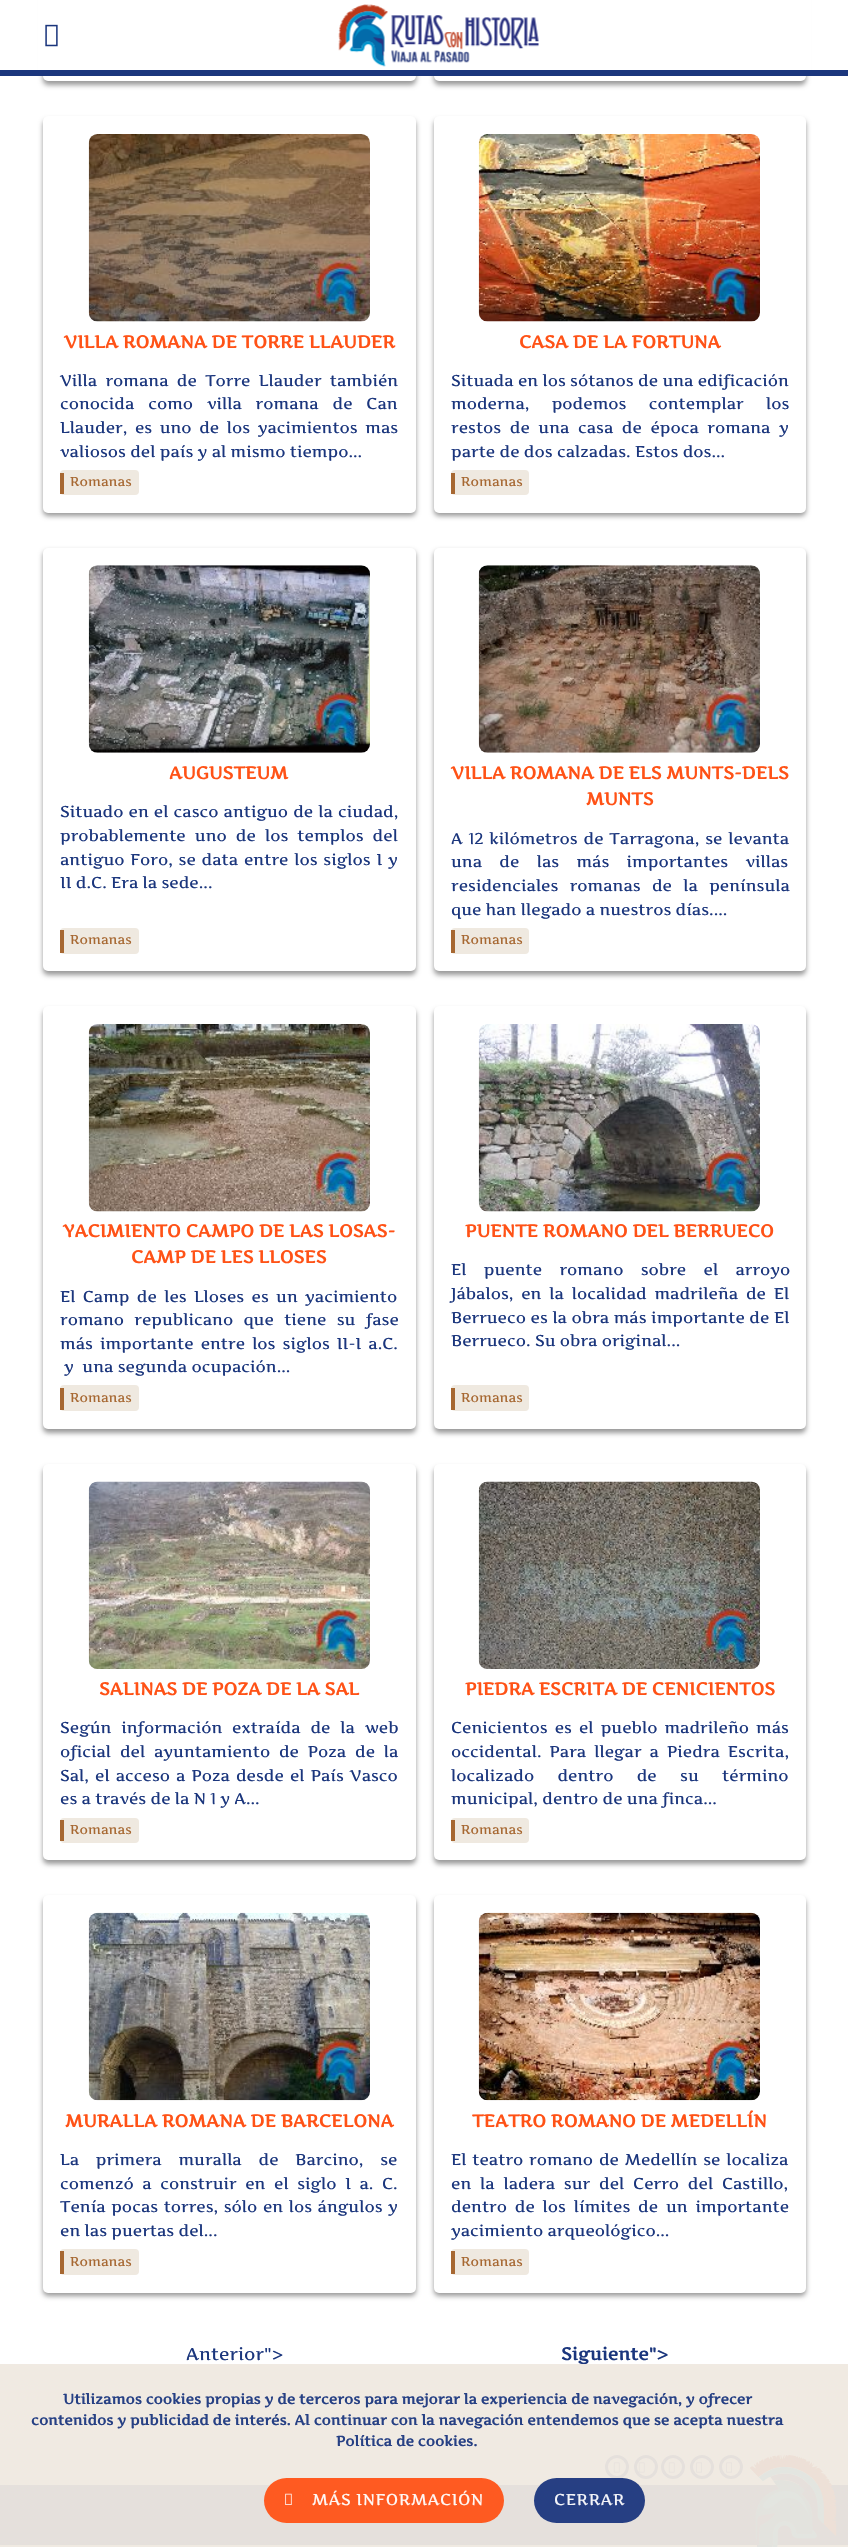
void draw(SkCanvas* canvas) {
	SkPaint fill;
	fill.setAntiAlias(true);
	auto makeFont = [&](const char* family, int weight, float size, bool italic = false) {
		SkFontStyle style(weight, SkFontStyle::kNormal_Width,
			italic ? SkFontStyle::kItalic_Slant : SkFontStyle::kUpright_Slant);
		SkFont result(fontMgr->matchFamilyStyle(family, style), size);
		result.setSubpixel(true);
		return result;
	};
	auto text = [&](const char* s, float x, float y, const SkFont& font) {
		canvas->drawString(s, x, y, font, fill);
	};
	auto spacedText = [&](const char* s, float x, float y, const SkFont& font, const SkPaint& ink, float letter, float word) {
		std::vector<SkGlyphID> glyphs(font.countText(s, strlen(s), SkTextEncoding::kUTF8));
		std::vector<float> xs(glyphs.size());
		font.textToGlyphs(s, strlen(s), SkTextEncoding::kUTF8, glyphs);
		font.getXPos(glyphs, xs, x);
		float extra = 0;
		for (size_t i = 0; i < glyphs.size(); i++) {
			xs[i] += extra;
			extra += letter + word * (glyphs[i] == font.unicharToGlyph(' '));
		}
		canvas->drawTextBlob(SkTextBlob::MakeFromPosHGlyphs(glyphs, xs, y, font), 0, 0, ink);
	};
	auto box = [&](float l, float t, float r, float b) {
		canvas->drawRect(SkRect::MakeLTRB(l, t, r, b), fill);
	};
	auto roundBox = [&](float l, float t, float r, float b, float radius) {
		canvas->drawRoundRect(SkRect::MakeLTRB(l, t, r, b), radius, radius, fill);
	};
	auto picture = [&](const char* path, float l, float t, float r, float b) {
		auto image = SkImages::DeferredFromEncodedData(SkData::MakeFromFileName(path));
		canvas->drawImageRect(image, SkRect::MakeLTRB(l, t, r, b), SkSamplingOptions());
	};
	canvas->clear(0xFFFFFFFF);
	fill.setColor(0x66000000);
	fill.setMaskFilter(SkMaskFilter::MakeBlur(kNormal_SkBlurStyle, 2.5f));
	canvas->drawRoundRect(SkRect::MakeLTRB(43, -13, 416, 85), 5, 5, fill);
	fill.setMaskFilter(nullptr);
	fill.setColor(0xFFFFFFFF);
	roundBox(43, -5, 416, 81, 5);
	fill.setColor(0x66000000);
	fill.setMaskFilter(SkMaskFilter::MakeBlur(kNormal_SkBlurStyle, 2.5f));
	canvas->drawRoundRect(SkRect::MakeLTRB(434, -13, 806, 85), 5, 5, fill);
	fill.setMaskFilter(nullptr);
	fill.setColor(0xFFFFFFFF);
	roundBox(434, -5, 806, 81, 5);
	box(38, 0, 811, 70);
	fill.setColor(0xFF1B367D);
	box(0, 70, 848, 76);
	picture("image0.png", 45, 24, 58, 47);
	picture("image1.png", 338, 4, 539, 67);
	fill.setColor(0x66000000);
	fill.setMaskFilter(SkMaskFilter::MakeBlur(kNormal_SkBlurStyle, 2.5f));
	canvas->drawRoundRect(SkRect::MakeLTRB(43, 120, 416, 516), 5, 5, fill);
	fill.setMaskFilter(nullptr);
	fill.setColor(0xFFFFFFFF);
	roundBox(43, 116, 416, 513, 5);
	picture("image2.png", 88, 134, 370, 322);
	fill.setColor(0xFFEFE9E0);
	roundBox(60, 470, 139, 495, 4);
	fill.setColor(0xFFA76832);
	box(60, 473, 64, 494);
	fill.setColor(0x66000000);
	fill.setMaskFilter(SkMaskFilter::MakeBlur(kNormal_SkBlurStyle, 2.5f));
	canvas->drawRoundRect(SkRect::MakeLTRB(434, 120, 806, 516), 5, 5, fill);
	fill.setMaskFilter(nullptr);
	fill.setColor(0xFFFFFFFF);
	roundBox(434, 116, 806, 513, 5);
	picture("image3.png", 478, 134, 760, 322);
	fill.setColor(0xFFEFE9E0);
	roundBox(451, 470, 529, 495, 4);
	fill.setColor(0xFFA76832);
	box(451, 473, 455, 494);
	fill.setColor(0x66000000);
	fill.setMaskFilter(SkMaskFilter::MakeBlur(kNormal_SkBlurStyle, 2.5f));
	canvas->drawRoundRect(SkRect::MakeLTRB(43, 551, 416, 975), 5, 5, fill);
	fill.setMaskFilter(nullptr);
	fill.setColor(0xFFFFFFFF);
	roundBox(43, 548, 416, 971, 5);
	picture("image4.png", 88, 565, 370, 753);
	fill.setColor(0xFFEFE9E0);
	roundBox(60, 928, 139, 954, 4);
	fill.setColor(0xFFA76832);
	box(60, 930, 64, 953);
	fill.setColor(0x66000000);
	fill.setMaskFilter(SkMaskFilter::MakeBlur(kNormal_SkBlurStyle, 2.5f));
	canvas->drawRoundRect(SkRect::MakeLTRB(434, 551, 806, 975), 5, 5, fill);
	fill.setMaskFilter(nullptr);
	fill.setColor(0xFFFFFFFF);
	roundBox(434, 548, 806, 971, 5);
	picture("image5.png", 478, 565, 760, 753);
	fill.setColor(0xFFEFE9E0);
	roundBox(451, 928, 529, 954, 4);
	fill.setColor(0xFFA76832);
	box(451, 930, 455, 953);
	fill.setColor(0x66000000);
	fill.setMaskFilter(SkMaskFilter::MakeBlur(kNormal_SkBlurStyle, 2.5f));
	canvas->drawRoundRect(SkRect::MakeLTRB(43, 1010, 416, 1433), 5, 5, fill);
	fill.setMaskFilter(nullptr);
	fill.setColor(0xFFFFFFFF);
	roundBox(43, 1006, 416, 1429, 5);
	picture("image6.png", 88, 1024, 370, 1212);
	fill.setColor(0xFFEFE9E0);
	roundBox(60, 1385, 139, 1411, 4);
	fill.setColor(0xFFA76832);
	box(60, 1388, 64, 1410);
	fill.setColor(0x66000000);
	fill.setMaskFilter(SkMaskFilter::MakeBlur(kNormal_SkBlurStyle, 2.5f));
	canvas->drawRoundRect(SkRect::MakeLTRB(434, 1010, 806, 1433), 5, 5, fill);
	fill.setMaskFilter(nullptr);
	fill.setColor(0xFFFFFFFF);
	roundBox(434, 1006, 806, 1429, 5);
	picture("image7.png", 478, 1024, 760, 1212);
	fill.setColor(0xFFEFE9E0);
	roundBox(451, 1385, 529, 1411, 4);
	fill.setColor(0xFFA76832);
	box(451, 1388, 455, 1410);
	fill.setColor(0x66000000);
	fill.setMaskFilter(SkMaskFilter::MakeBlur(kNormal_SkBlurStyle, 2.5f));
	canvas->drawRoundRect(SkRect::MakeLTRB(43, 1468, 416, 1864), 5, 5, fill);
	fill.setMaskFilter(nullptr);
	fill.setColor(0xFFFFFFFF);
	roundBox(43, 1464, 416, 1860, 5);
	picture("image8.png", 88, 1481, 370, 1669);
	fill.setColor(0xFFEFE9E0);
	roundBox(60, 1818, 139, 1843, 4);
	fill.setColor(0xFFA76832);
	box(60, 1820, 64, 1841);
	fill.setColor(0x66000000);
	fill.setMaskFilter(SkMaskFilter::MakeBlur(kNormal_SkBlurStyle, 2.5f));
	canvas->drawRoundRect(SkRect::MakeLTRB(434, 1468, 806, 1864), 5, 5, fill);
	fill.setMaskFilter(nullptr);
	fill.setColor(0xFFFFFFFF);
	roundBox(434, 1464, 806, 1860, 5);
	picture("image9.png", 478, 1481, 760, 1669);
	fill.setColor(0xFFEFE9E0);
	roundBox(451, 1818, 529, 1843, 4);
	fill.setColor(0xFFA76832);
	box(451, 1820, 455, 1841);
	fill.setColor(0x66000000);
	fill.setMaskFilter(SkMaskFilter::MakeBlur(kNormal_SkBlurStyle, 2.5f));
	canvas->drawRoundRect(SkRect::MakeLTRB(43, 1899, 416, 2296), 5, 5, fill);
	fill.setMaskFilter(nullptr);
	fill.setColor(0xFFFFFFFF);
	roundBox(43, 1895, 416, 2293, 5);
	picture("image10.png", 88, 1912, 370, 2101);
	fill.setColor(0xFFEFE9E0);
	roundBox(60, 2249, 139, 2275, 4);
	fill.setColor(0xFFA76832);
	box(60, 2251, 64, 2274);
	fill.setColor(0x66000000);
	fill.setMaskFilter(SkMaskFilter::MakeBlur(kNormal_SkBlurStyle, 2.5f));
	canvas->drawRoundRect(SkRect::MakeLTRB(434, 1899, 806, 2296), 5, 5, fill);
	fill.setMaskFilter(nullptr);
	fill.setColor(0xFFFFFFFF);
	roundBox(434, 1895, 806, 2293, 5);
	picture("image11.png", 478, 1912, 760, 2101);
	fill.setColor(0xFFEFE9E0);
	roundBox(451, 2249, 529, 2275, 4);
	fill.setColor(0xFFA76832);
	box(451, 2251, 455, 2274);
	fill.setStyle(SkPaint::kStroke_Style);
	fill.setStrokeWidth(3);
	fill.setColor(0xFF1B367D);
	canvas->drawCircle(617, 2467, 10.5f, fill);
	picture("image13.png", 613, 2462, 620, 2473);
	canvas->drawCircle(646, 2467, 10.5f, fill);
	picture("image14.png", 638, 2462, 645, 2473);
	canvas->drawCircle(673, 2467, 10.5f, fill);
	picture("image13.png", 668, 2462, 675, 2473);
	canvas->drawCircle(702, 2467, 10.5f, fill);
	picture("image15.png", 696, 2462, 703, 2473);
	canvas->drawCircle(731, 2467, 10.5f, fill);
	picture("image15.png", 726, 2462, 733, 2473);
	fill.setStyle(SkPaint::kFill_Style);
	box(0, 2485, 848, 2545);
	picture("image16.png", 749, 2454, 837, 2547);
	auto font1 = makeFont("Artifika", 700, 17.5f);
	fill.setColor(0xFFFF5216);
	text("VILLA ROMANA DE TORRE LLAUDER", 64, 348, font1);
	auto font2 = makeFont("Artifika", 400, 15.75f);
	fill.setColor(0xFF1B367D);
	spacedText("Villa romana de Torre Llauder también", 60, 386, font2, fill, 0, 4);
	spacedText("conocida como villa romana de Can", 60, 409, font2, fill, 0, 9.5f);
	spacedText("Llauder, es uno de los yacimientos mas", 60, 433, font2, fill, 0, 3.25f);
	text("valiosos del país y al mismo tiempo...", 60, 457, font2);
	auto font3 = makeFont("Artifika", 400, 13);
	fill.setColor(0xFFA76832);
	text("Romanas", 70, 486, font3);
	fill.setColor(0xFFFF5216);
	text("CASA DE LA FORTUNA", 519, 348, font1);
	fill.setColor(0xFF1B367D);
	text("Situada en los sótanos de una edificación", 451, 386, font2);
	spacedText("moderna, podemos contemplar los", 451, 409, font2, fill, 0, 18);
	spacedText("restos de una casa de época romana y", 451, 433, font2, fill, 0, 4.25f);
	text("parte de dos calzadas. Estos dos...", 451, 457, font2);
	fill.setColor(0xFFA76832);
	text("Romanas", 461, 486, font3);
	fill.setColor(0xFFFF5216);
	text("AUGUSTEUM", 169, 779, font1);
	fill.setColor(0xFF1B367D);
	spacedText("Situado en el casco antiguo de la ciudad,", 60, 817, font2, fill, 0, 0.75f);
	spacedText("probablemente uno de los templos del", 60, 841, font2, fill, 0, 4.75f);
	spacedText("antiguo Foro, se data entre los siglos I y", 60, 865, font2, fill, 0, 1.5f);
	text("II d.C. Era la sede...", 60, 888, font2);
	fill.setColor(0xFFA76832);
	text("Romanas", 70, 944, font3);
	fill.setColor(0xFFFF5216);
	text("VILLA ROMANA DE ELS MUNTS-DELS", 451, 779, font1);
	text("MUNTS", 586, 805, font1);
	fill.setColor(0xFF1B367D);
	spacedText("A 12 kilómetros de Tarragona, se levanta", 451, 844, font2, fill, 0, 1.5f);
	spacedText("una de las más importantes villas", 451, 867, font2, fill, 0, 13);
	spacedText("residenciales romanas de la península", 451, 891, font2, fill, 0, 7);
	text("que han llegado a nuestros días....", 451, 915, font2);
	fill.setColor(0xFFA76832);
	text("Romanas", 461, 944, font3);
	fill.setColor(0xFFFF5216);
	text("YACIMIENTO CAMPO DE LAS LOSAS-", 63, 1237, font1);
	text("CAMP DE LES LLOSES", 131, 1263, font1);
	fill.setColor(0xFF1B367D);
	spacedText("El Camp de les Lloses es un yacimiento", 60, 1302, font2, fill, 0, 3);
	spacedText("romano republicano que tiene su fase", 60, 1325, font2, fill, 0, 6);
	spacedText("más importante entre los siglos II-I a.C.", 60, 1349, font2, fill, 0, 2.75f);
	text("y  una segunda ocupación...", 64, 1372, font2);
	fill.setColor(0xFFA76832);
	text("Romanas", 70, 1402, font3);
	fill.setColor(0xFFFF5216);
	text("PUENTE ROMANO DEL BERRUECO", 465, 1237, font1);
	fill.setColor(0xFF1B367D);
	spacedText("El puente romano sobre el arroyo", 451, 1275, font2, fill, 0, 13);
	spacedText("Jábalos, en la localidad madrileña de El", 451, 1299, font2, fill, 0, 3.5f);
	spacedText("Berrueco es la obra más importante de El", 451, 1323, font2, fill, 0, 0.25f);
	text("Berrueco. Su obra original...", 451, 1346, font2);
	fill.setColor(0xFFA76832);
	text("Romanas", 461, 1402, font3);
	fill.setColor(0xFFFF5216);
	text("SALINAS DE POZA DE LA SAL", 99, 1695, font1);
	fill.setColor(0xFF1B367D);
	spacedText("Según información extraída de la web", 60, 1733, font2, fill, 0, 5.5f);
	spacedText("oficial del ayuntamiento de Poza de la", 60, 1757, font2, fill, 0, 4.5f);
	spacedText("Sal, el acceso a Poza desde el País Vasco", 60, 1781, font2, fill, 0, 1.75f);
	text("es a través de la N 1 y A...", 60, 1804, font2);
	fill.setColor(0xFFA76832);
	text("Romanas", 70, 1834, font3);
	fill.setColor(0xFFFF5216);
	text("PIEDRA ESCRITA DE CENICIENTOS", 465, 1695, font1);
	fill.setColor(0xFF1B367D);
	spacedText("Cenicientos es el pueblo madrileño más", 451, 1733, font2, fill, 0, 2.75f);
	spacedText("occidental. Para llegar a Piedra Escrita,", 451, 1757, font2, fill, 0, 3.75f);
	spacedText("localizado dentro de su término", 451, 1781, font2, fill, 0, 19);
	text("municipal, dentro de una finca...", 451, 1804, font2);
	fill.setColor(0xFFA76832);
	text("Romanas", 461, 1834, font3);
	fill.setColor(0xFFFF5216);
	text("MURALLA ROMANA DE BARCELONA", 65, 2127, font1);
	fill.setColor(0xFF1B367D);
	spacedText("La primera muralla de Barcino, se", 60, 2165, font2, fill, 0, 12.5f);
	spacedText("comenzó a construir en el siglo I a. C.", 60, 2189, font2, fill, 0, 4.25f);
	spacedText("Tenía pocas torres, sólo en los ángulos y", 60, 2212, font2, fill, 0, 1.25f);
	text("en las puertas del...", 60, 2236, font2);
	fill.setColor(0xFFA76832);
	text("Romanas", 70, 2266, font3);
	fill.setColor(0xFFFF5216);
	text("TEATRO ROMANO DE MEDELLÍN", 472, 2127, font1);
	fill.setColor(0xFF1B367D);
	spacedText("El teatro romano de Medellín se localiza", 451, 2165, font2, fill, 0, 1.5f);
	spacedText("en la ladera sur del Cerro del Castillo,", 451, 2189, font2, fill, 0, 4.5f);
	spacedText("dentro de los límites de un importante", 451, 2212, font2, fill, 0, 3.5f);
	text("yacimiento arqueológico...", 451, 2236, font2);
	fill.setColor(0xFFA76832);
	text("Romanas", 461, 2266, font3);
	auto font4 = makeFont("Artifika", 400, 17.5f);
	fill.setColor(0xFF1B367D);
	text("Anterior\">", 186, 2360, font4);
	text("Siguiente\">", 561, 2360, font1);
	fill.setColor(0xF2EFE9E0);
	box(0, 2364, 848, 2547);
	auto font5 = makeFont("Artifika", 700, 14.18f);
	fill.setColor(0xFF264084);
	text("Utilizamos cookies propias y de terceros para mejorar la experiencia de navegación, y ofrecer", 63, 2404, font5);
	text("contenidos y publicidad de interés. Al continuar con la navegación entendemos que se acepta nuestra", 31, 2425, font5);
	text("Política de cookies.", 336, 2446, font5);
	fill.setColor(0xF2FF5216);
	roundBox(264, 2478, 504, 2523, 22.5f);
	picture("image12.png", 285, 2493, 292, 2505);
	fill.setColor(0xFFFFF7F4);
	spacedText("MÁS INFORMACIÓN", 312, 2505, font2, fill, 0.6f, 0);
	fill.setColor(0xF21B367D);
	roundBox(534, 2478, 645, 2523, 22.5f);
	fill.setColor(0xFFF4F5F9);
	spacedText("CERRAR", 554, 2505, font2, fill, 0.6f, 0);
}
